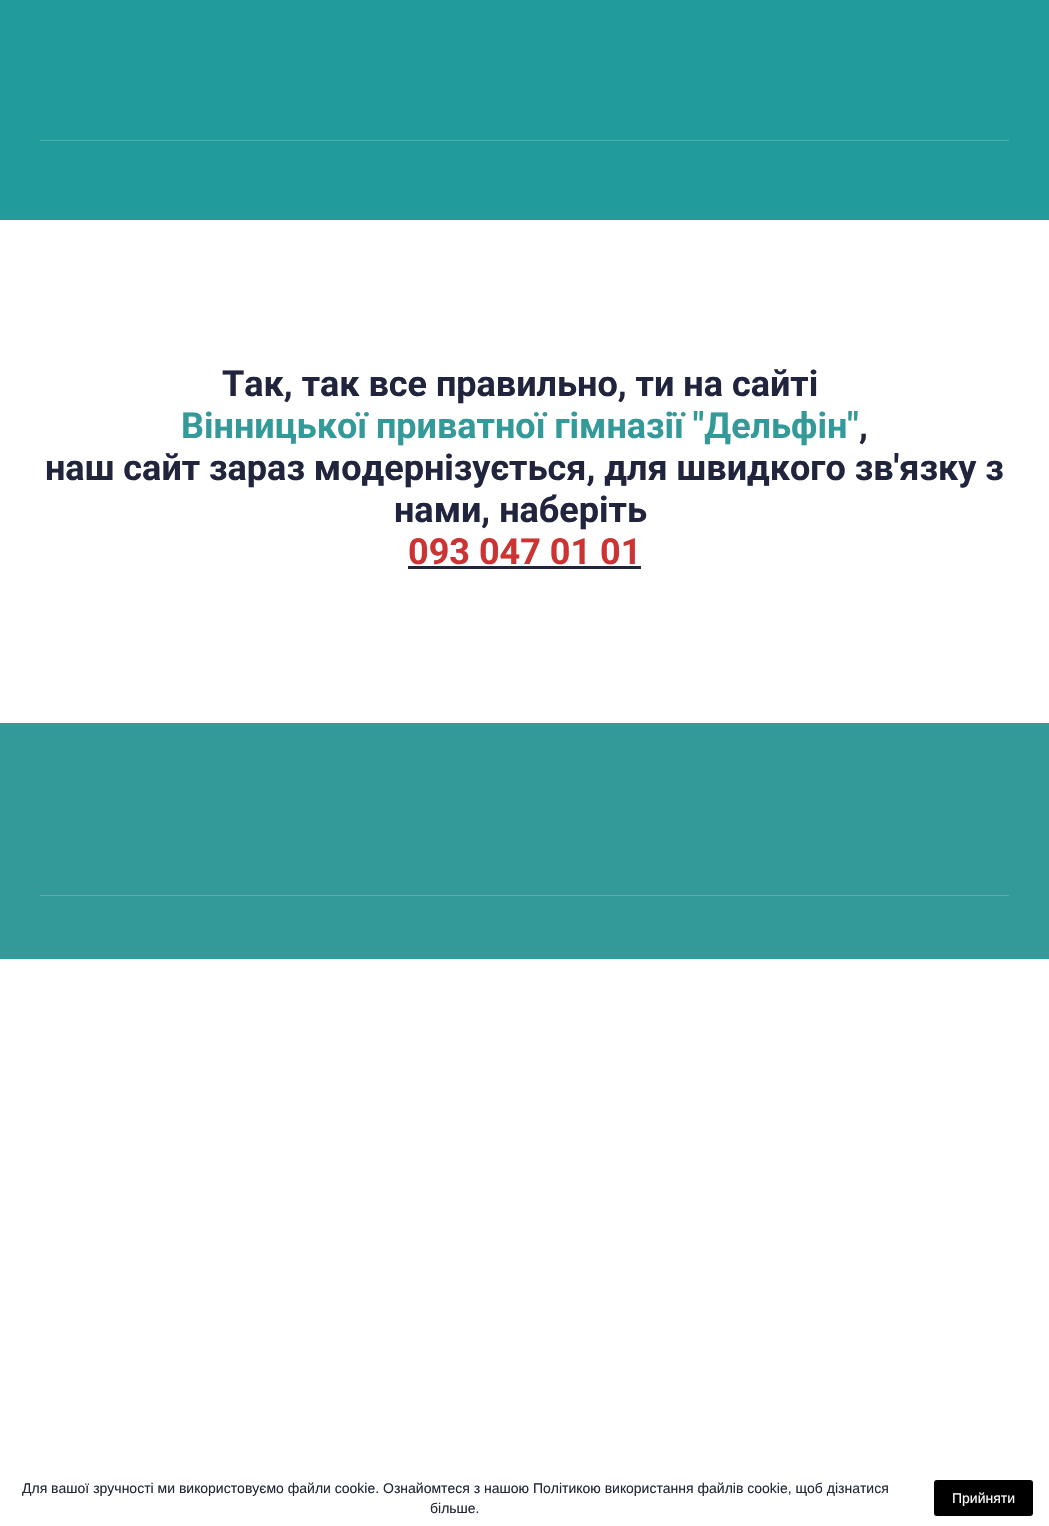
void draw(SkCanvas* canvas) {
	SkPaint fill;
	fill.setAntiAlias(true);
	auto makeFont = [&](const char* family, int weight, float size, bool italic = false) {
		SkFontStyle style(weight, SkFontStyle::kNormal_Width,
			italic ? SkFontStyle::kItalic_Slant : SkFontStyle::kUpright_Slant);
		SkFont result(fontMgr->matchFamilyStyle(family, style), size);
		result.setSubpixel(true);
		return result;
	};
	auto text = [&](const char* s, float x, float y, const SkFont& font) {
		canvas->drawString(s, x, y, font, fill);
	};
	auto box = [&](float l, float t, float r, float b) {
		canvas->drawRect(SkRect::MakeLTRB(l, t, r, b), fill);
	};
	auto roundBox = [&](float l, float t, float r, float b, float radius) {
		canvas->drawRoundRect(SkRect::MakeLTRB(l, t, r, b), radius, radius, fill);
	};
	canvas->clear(0xFFFFFFFF);
	fill.setColor(0xFF219B9C);
	box(0, 0, 1049, 220);
	fill.setColor(0xFF4DAFB0);
	box(40, 140, 1009, 141);
	fill.setColor(0xFF21243D);
	box(408, 566, 641, 569);
	fill.setColor(0xFF339999);
	box(0, 723, 1049, 959);
	fill.setColor(0xFF5CADAD);
	box(40, 895, 1009, 896);
	fill.setColor(0xFF000000);
	roundBox(934, 1480, 1033, 1516, 3);
	auto font1 = makeFont("Roboto", 700, 36);
	fill.setColor(0xFF21243D);
	text("Так, так все правильно, ти на сайті", 222, 396, font1);
	fill.setColor(0xFF339999);
	text("Вінницької приватної гімназії \"Дельфін\"", 181, 438, font1);
	fill.setColor(0xFF21243D);
	text(",", 859, 438, font1);
	text("наш сайт зараз модернізується, для швидкого зв'язку з", 45, 480, font1);
	text("нами, наберіть", 394, 522, font1);
	fill.setColor(0xFFCC3333);
	text("093 047 01 01", 408, 564, font1);
	auto font2 = makeFont("Liberation Sans", 400, 14);
	fill.setColor(0xFF212736);
	text("Для вашої зручності ми використовуємо файли cookie. Ознайомтеся з нашою Політикою використання файлів cookie, щоб дізнатися", 22, 1493, font2);
	text("більше.", 430, 1513, font2);
	fill.setColor(0xFFFFFFFF);
	text("Прийняти", 952, 1503, font2);
}
